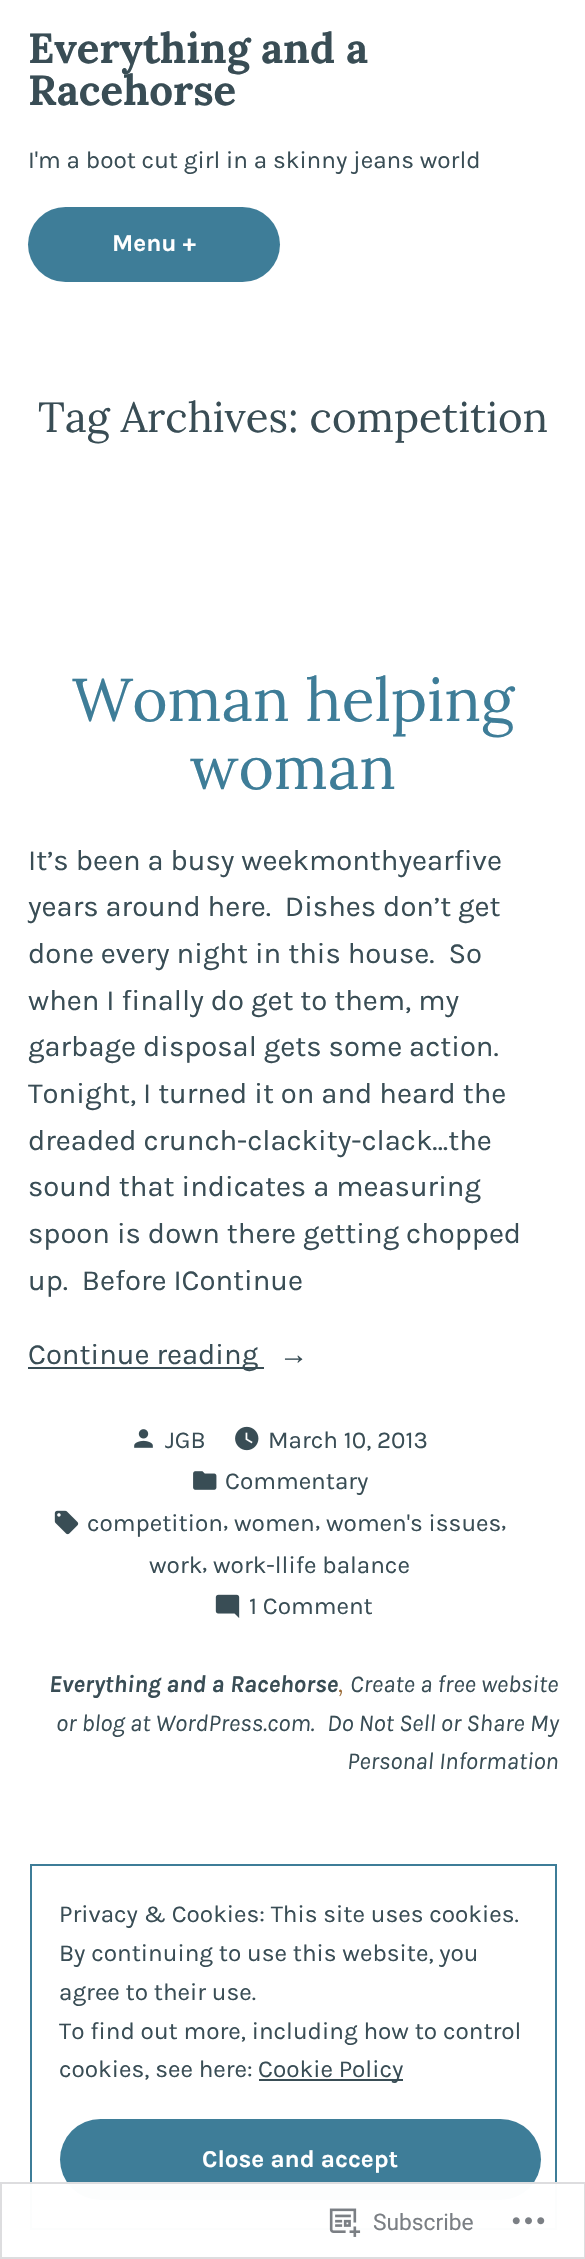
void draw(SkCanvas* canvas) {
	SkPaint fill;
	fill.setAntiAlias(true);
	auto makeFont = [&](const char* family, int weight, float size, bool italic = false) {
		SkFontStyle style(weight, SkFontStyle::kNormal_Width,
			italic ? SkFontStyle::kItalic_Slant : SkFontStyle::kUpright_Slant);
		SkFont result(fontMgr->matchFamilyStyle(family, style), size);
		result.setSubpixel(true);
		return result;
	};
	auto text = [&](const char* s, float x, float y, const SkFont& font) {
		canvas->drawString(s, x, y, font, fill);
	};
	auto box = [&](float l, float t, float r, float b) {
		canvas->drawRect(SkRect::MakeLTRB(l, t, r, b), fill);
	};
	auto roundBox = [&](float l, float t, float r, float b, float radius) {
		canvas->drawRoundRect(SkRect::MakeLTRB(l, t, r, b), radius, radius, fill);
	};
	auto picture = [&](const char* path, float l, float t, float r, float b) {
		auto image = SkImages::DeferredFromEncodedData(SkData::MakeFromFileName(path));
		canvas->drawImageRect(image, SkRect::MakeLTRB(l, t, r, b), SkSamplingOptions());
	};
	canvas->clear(0xFFFFFFFF);
	fill.setColor(0xFF3E7D98);
	roundBox(28, 207, 280, 282, 37.5f);
	fill.setColor(0xFF394D55);
	box(28, 1367, 264, 1369);
	picture("image0.png", 134, 1429, 153, 1448);
	picture("image1.png", 235, 1426, 259, 1451);
	picture("image2.png", 193, 1471, 217, 1490);
	picture("image3.png", 54, 1510, 79, 1535);
	picture("image4.png", 215, 1594, 240, 1618);
	fill.setStyle(SkPaint::kStroke_Style);
	fill.setStrokeWidth(2);
	fill.setColor(0xFF3E7D98);
	canvas->drawRect(SkRect::MakeLTRB(31, 1865, 556, 2229), fill);
	fill.setStyle(SkPaint::kFill_Style);
	fill.setColor(0xFF394D55);
	box(259, 2079, 403, 2081);
	fill.setColor(0xFF3E7D98);
	roundBox(60, 2119, 541, 2200, 40.5f);
	fill.setColor(0xFAFFFFFF);
	box(30, 2182, 557, 2230);
	fill.setStyle(SkPaint::kStroke_Style);
	fill.setColor(0xFADCDCDE);
	canvas->drawRect(SkRect::MakeLTRB(1, 2183, 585, 2258), fill);
	picture("image5.png", 329, 2208, 361, 2237);
	picture("image6.png", 512, 2217, 545, 2225);
	auto font1 = makeFont("Lora", 700, 42);
	fill.setStyle(SkPaint::kFill_Style);
	fill.setColor(0xFF394D55);
	text("Everything and a", 28, 63, font1);
	text("Racehorse", 28, 105, font1);
	auto font2 = makeFont("Karla", 400, 24.3f);
	text("I'm a boot cut girl in a skinny jeans world", 28, 168, font2);
	auto font3 = makeFont("Karla", 700, 24.3f);
	fill.setColor(0xFFFFFFFF);
	text("Menu +", 112, 251, font3);
	auto font4 = makeFont("Lora", 400, 42);
	fill.setColor(0xFF394D55);
	text("Tag Archives: competition", 38, 432, font4);
	auto font5 = makeFont("Lora", 400, 60.5f);
	fill.setColor(0xFF3E7D98);
	text("Woman helping", 72, 721, font5);
	text("woman", 190, 789, font5);
	auto font6 = makeFont("Karla", 400, 29.2f);
	fill.setColor(0xFF394D55);
	text("It’s been a busy weekmonthyearfive", 28, 870, font6);
	text("years around here.  Dishes don’t get", 28, 916, font6);
	text("done every night in this house.  So", 28, 963, font6);
	text("when I finally do get to them, my", 28, 1010, font6);
	text("garbage disposal gets some action.", 28, 1056, font6);
	text("Tonight, I turned it on and heard the", 28, 1103, font6);
	text("dreaded crunch-clackity-clack…the", 28, 1150, font6);
	text("sound that indicates a measuring", 28, 1196, font6);
	text("spoon is down there getting chopped", 28, 1243, font6);
	text("up.  Before IContinue", 28, 1290, font6);
	text("Continue reading", 28, 1364, font6);
	auto font7 = makeFont("Liberation Sans", 400, 29.2f);
	text("→", 279, 1364, font7);
	text("JGB", 165, 1448, font2);
	text("March 10, 2013", 268, 1448, font2);
	text("Commentary", 225, 1489, font2);
	text("competition", 87, 1531, font2);
	text(",", 223, 1528, font2);
	text("women", 234, 1531, font2);
	text(",", 315, 1528, font2);
	text("women's issues", 326, 1531, font2);
	text(",", 501, 1528, font2);
	text("work", 149, 1573, font2);
	text(",", 202, 1570, font2);
	text("work-llife balance", 213, 1573, font2);
	text("1 Comment", 249, 1614, font2);
	auto font8 = makeFont("Karla", 700, 24.3f, true);
	text("Everything and a Racehorse", 49, 1692, font8);
	auto font9 = makeFont("Lora", 400, 24.3f, true);
	fill.setColor(0xFF9B6A36);
	text(",", 338, 1692, font9);
	auto font10 = makeFont("Karla", 400, 24.3f, true);
	fill.setColor(0xFF394D55);
	text("Create a free website", 350, 1692, font10);
	text("or blog at WordPress.com.", 56, 1731, font10);
	text("Do Not Sell or Share My", 327, 1731, font10);
	text("Personal Information", 347, 1769, font10);
	text("Privacy & Cookies: This site uses cookies.", 59, 1922, font2);
	text("By continuing to use this website, you", 59, 1961, font2);
	text("agree to their use.", 59, 2000, font2);
	text("To find out more, including how to control", 59, 2039, font2);
	text("cookies, see here:", 59, 2077, font2);
	text("Cookie Policy", 258, 2077, font2);
	fill.setColor(0xFFFFFFFF);
	text("Close and accept", 202, 2167, font3);
	auto font11 = makeFont("Roboto", 400, 22.75f);
	fill.setColor(0xFF7B7F84);
	text("Subscribe", 373, 2230, font11);
}
